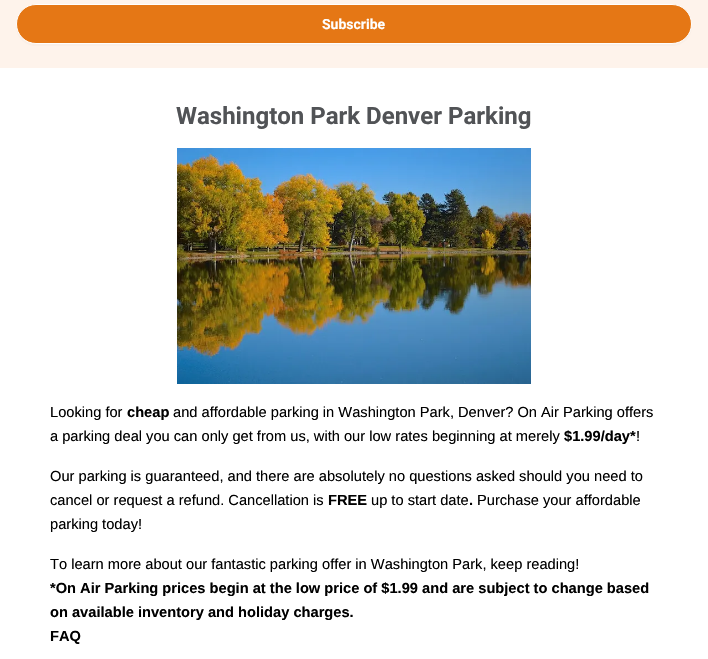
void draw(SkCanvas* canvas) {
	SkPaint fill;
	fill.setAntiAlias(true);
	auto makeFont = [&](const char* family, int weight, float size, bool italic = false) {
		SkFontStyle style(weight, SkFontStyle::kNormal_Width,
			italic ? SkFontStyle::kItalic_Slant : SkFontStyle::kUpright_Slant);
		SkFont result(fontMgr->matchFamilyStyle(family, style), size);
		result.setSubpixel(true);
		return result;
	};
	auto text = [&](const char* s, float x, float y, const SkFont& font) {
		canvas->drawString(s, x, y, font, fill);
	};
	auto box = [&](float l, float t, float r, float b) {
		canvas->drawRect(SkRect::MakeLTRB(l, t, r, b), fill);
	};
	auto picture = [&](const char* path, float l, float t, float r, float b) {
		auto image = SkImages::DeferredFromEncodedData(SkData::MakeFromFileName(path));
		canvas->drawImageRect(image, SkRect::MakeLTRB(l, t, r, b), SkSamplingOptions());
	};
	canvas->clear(0xFFFFFFFF);
	fill.setColor(0xFFFEF3EB);
	box(0, 0, 708, 68);
	fill.setColor(0xFFFAEFE7);
	canvas->drawPath(SkPathBuilder().moveTo(16, 25).lineTo(16, 26).cubicTo(16, 37, 25, 46, 36, 46).lineTo(672, 46).cubicTo(683, 46, 692, 37, 692, 26).lineTo(692, 25).cubicTo(691, 36, 683, 44, 672, 44).lineTo(36, 44).cubicTo(25, 44, 17, 36, 16, 25).close().detach(), fill);
	fill.setColor(0xFFE57715);
	canvas->drawRoundRect(SkRect::MakeLTRB(16.5f, 4.5f, 691.5f, 43.5f), 19.5f, 19.5f, fill);
	fill.setStyle(SkPaint::kStroke_Style);
	fill.setStrokeWidth(1);
	fill.setColor(0xFFFFFFFF);
	canvas->drawRoundRect(SkRect::MakeLTRB(16.5f, 4.5f, 691.5f, 43.5f), 19.5f, 19.5f, fill);
	picture("image0.png", 177, 148, 531, 384);
	auto font1 = makeFont("Roboto", 700, 14);
	fill.setStyle(SkPaint::kFill_Style);
	text("Subscribe", 322, 29, font1);
	auto font2 = makeFont("Roboto", 700, 24);
	fill.setColor(0xFF515356);
	text("Washington Park Denver Parking", 176, 124, font2);
	auto font3 = makeFont("Liberation Sans", 400, 14.65f);
	fill.setColor(0xFF000000);
	text("Looking for", 50, 417, font3);
	auto font4 = makeFont("Liberation Sans", 700, 14.65f);
	text("cheap", 127, 417, font4);
	text("and affordable parking in Washington Park, Denver? On Air Parking offers", 173, 417, font3);
	text("a parking deal you can only get from us, with our low rates beginning at merely", 50, 441, font3);
	text("$1.99/day*", 564, 441, font4);
	text("!", 636, 441, font3);
	text("Our parking is guaranteed, and there are absolutely no questions asked should you need to", 50, 481, font3);
	text("cancel or request a refund. Cancellation is", 50, 505, font3);
	text("FREE", 328, 505, font4);
	text("up to start date", 371, 505, font3);
	text(".", 469, 505, font4);
	text("Purchase your affordable", 477, 505, font3);
	text("parking today!", 50, 529, font3);
	text("To learn more about our fantastic parking offer in Washington Park, keep reading!", 50, 569, font3);
	text("*On Air Parking prices begin at the low price of $1.99 and are subject to change based", 50, 593, font4);
	text("on available inventory and holiday charges.", 50, 617, font4);
	text("FAQ", 50, 641, font4);
}
